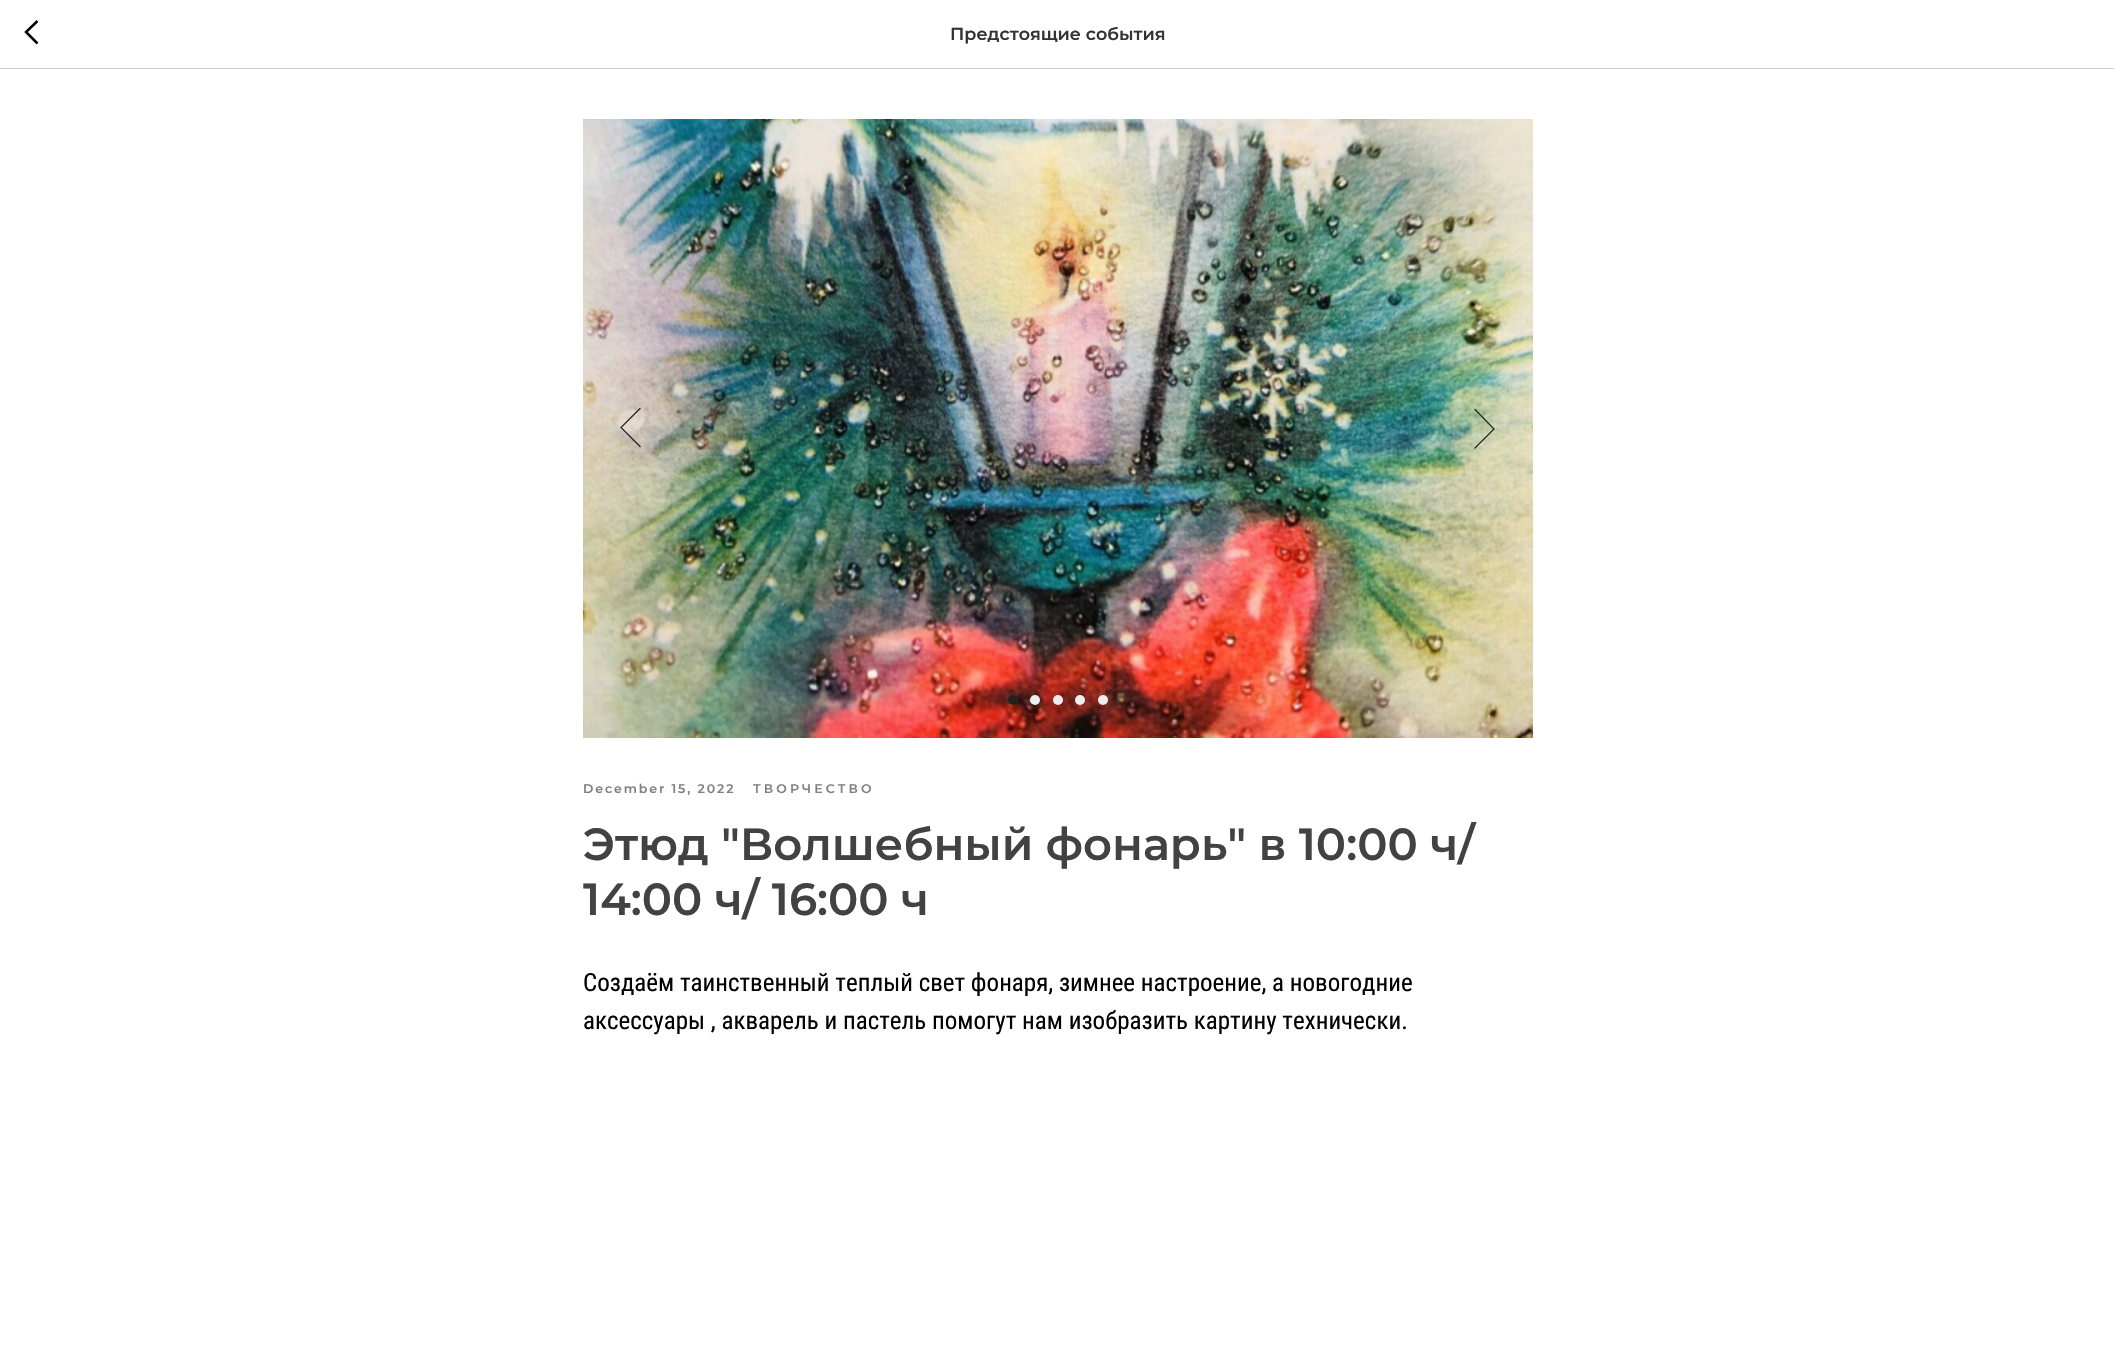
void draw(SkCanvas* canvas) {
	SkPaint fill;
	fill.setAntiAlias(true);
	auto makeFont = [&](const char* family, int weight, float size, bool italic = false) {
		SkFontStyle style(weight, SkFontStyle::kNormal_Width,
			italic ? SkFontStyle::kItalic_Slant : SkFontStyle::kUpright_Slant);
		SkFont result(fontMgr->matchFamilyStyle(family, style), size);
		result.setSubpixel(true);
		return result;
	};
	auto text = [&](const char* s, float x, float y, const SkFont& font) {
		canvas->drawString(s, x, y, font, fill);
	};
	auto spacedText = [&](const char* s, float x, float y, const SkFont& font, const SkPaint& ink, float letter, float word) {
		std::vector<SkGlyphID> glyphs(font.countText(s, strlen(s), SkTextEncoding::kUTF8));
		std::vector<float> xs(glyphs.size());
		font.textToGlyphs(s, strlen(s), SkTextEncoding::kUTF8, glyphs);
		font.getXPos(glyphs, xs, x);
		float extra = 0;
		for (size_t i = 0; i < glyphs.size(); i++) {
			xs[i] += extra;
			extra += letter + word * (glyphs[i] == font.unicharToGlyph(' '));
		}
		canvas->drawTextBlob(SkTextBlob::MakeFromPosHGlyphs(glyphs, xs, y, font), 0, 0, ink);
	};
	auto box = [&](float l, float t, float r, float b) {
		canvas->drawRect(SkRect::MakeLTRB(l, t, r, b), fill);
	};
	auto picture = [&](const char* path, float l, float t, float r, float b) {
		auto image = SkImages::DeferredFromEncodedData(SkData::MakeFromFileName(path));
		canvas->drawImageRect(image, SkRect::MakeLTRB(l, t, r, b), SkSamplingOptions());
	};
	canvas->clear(0xFFFFFFFF);
	fill.setColor(0xFFCCCCCC);
	box(0, 68, 2114, 69);
	fill.setStyle(SkPaint::kStroke_Style);
	fill.setStrokeWidth(2.5f);
	fill.setColor(0xFF000000);
	canvas->drawPath(SkPathBuilder().moveTo(37.5f, 43.5f).lineTo(26, 32).lineTo(37.5f, 21).detach(), fill);
	picture("image0.png", 583, 119, 1533, 738);
	fill.setStrokeWidth(1.2f);
	fill.setColor(0xFF222222);
	canvas->drawPath(SkPathBuilder().moveTo(640.5f, 447).lineTo(621, 427.5f).lineTo(640.5f, 408).detach(), fill);
	canvas->drawPath(SkPathBuilder().moveTo(1474.5f, 409).lineTo(1494, 429).lineTo(1474.5f, 448.5f).detach(), fill);
	fill.setStyle(SkPaint::kFill_Style);
	canvas->drawCircle(1013, 700, 5, fill);
	fill.setColor(0xFFEEEEEE);
	canvas->drawCircle(1035, 700, 5, fill);
	canvas->drawCircle(1058, 700, 5, fill);
	canvas->drawCircle(1080, 700, 5, fill);
	canvas->drawCircle(1103, 700, 5, fill);
	auto font1 = makeFont("Montserrat", 600, 17.5f);
	fill.setColor(0xFF333333);
	text("Предстоящие события", 950, 40, font1);
	auto font2 = makeFont("Montserrat", 600, 12.5f);
	fill.setColor(0xFF808080);
	spacedText("December 15, 2022", 583, 793, font2, fill, 1.9f, 0);
	spacedText("ТВОРЧЕСТВО", 753, 793, font2, fill, 3.1f, 0);
	auto font3 = makeFont("Montserrat", 600, 45);
	fill.setColor(0xFF424242);
	text("Этюд \"Волшебный фонарь\" в 10:00 ч/", 583, 860, font3);
	text("14:00 ч/ 16:00 ч", 583, 915, font3);
	auto font4 = makeFont("Roboto Condensed", 400, 25);
	fill.setColor(0xFF000000);
	text("Создаём таинственный теплый свет фонаря, зимнее настроение, а новогодние", 583, 991, font4);
	text("аксессуары , акварель и пастель помогут нам изобразить картину технически.", 583, 1029, font4);
}
